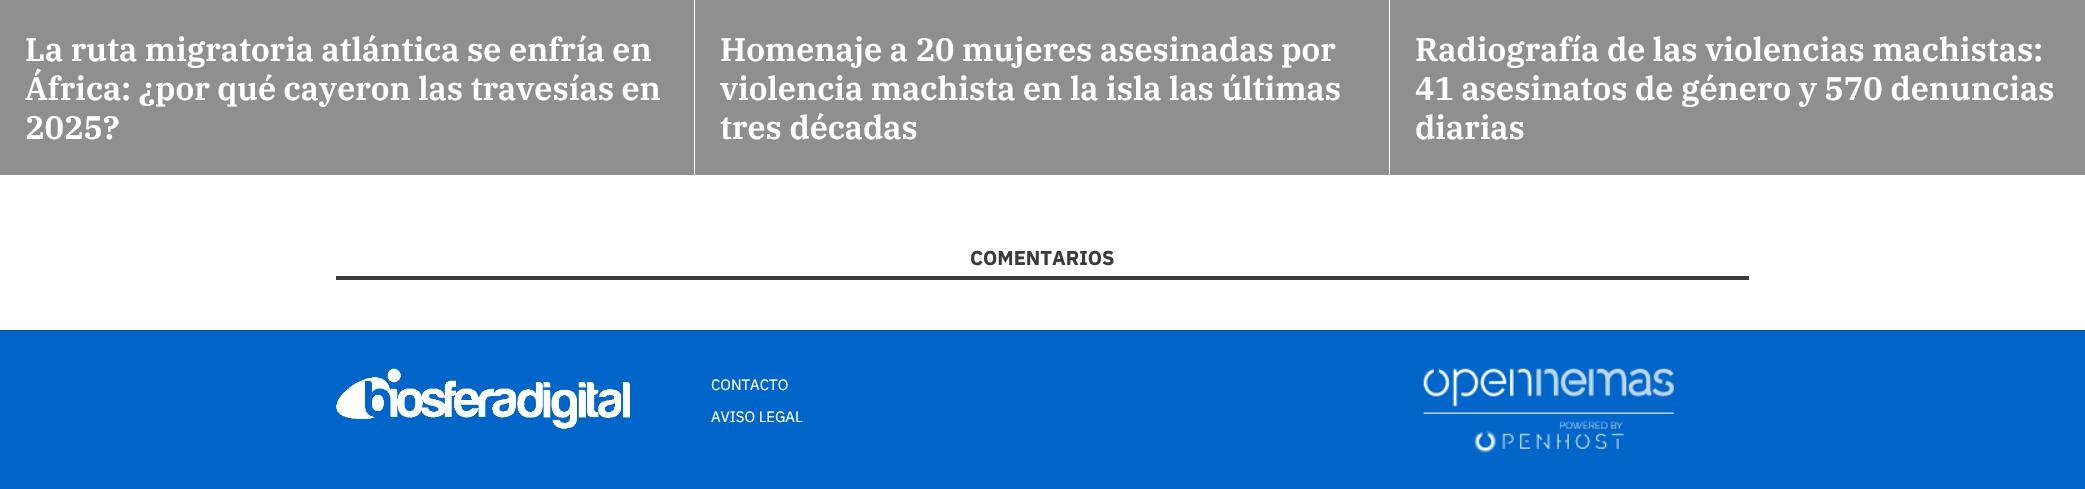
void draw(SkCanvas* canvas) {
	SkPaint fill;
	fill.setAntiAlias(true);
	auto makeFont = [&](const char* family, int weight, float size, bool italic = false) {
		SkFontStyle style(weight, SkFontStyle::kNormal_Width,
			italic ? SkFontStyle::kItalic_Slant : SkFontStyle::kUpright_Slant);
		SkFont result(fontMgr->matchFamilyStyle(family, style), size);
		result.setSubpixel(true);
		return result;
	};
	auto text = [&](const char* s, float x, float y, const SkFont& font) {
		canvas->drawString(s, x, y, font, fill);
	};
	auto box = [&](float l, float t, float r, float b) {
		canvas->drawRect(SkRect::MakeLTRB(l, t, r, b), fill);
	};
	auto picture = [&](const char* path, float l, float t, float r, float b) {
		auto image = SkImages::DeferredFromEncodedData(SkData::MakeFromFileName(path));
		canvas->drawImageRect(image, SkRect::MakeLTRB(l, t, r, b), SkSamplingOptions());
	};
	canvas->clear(0xFFFFFFFF);
	fill.setColor(0xFF8F8F8F);
	box(0, 0, 694, 175);
	box(695, 0, 1389, 175);
	box(1390, 0, 2085, 175);
	fill.setColor(0xFF3B3B3B);
	box(336, 276, 1749, 280);
	fill.setColor(0xFF0065C8);
	box(0, 331, 2085, 489);
	fill.setColor(0xFF0051A0);
	box(0, 330, 2085, 331);
	picture("image0.png", 336, 368, 630, 429);
	picture("image1.png", 1423, 368, 1674, 453);
	auto font1 = makeFont("IBM Plex Serif", 600, 32.5f);
	fill.setColor(0xFFFFFFFF);
	text("La ruta migratoria atlántica se enfría en", 25, 61, font1);
	text("África: ¿por qué cayeron las travesías en", 25, 100, font1);
	text("2025?", 25, 139, font1);
	text("Homenaje a 20 mujeres asesinadas por", 720, 61, font1);
	text("violencia machista en la isla las últimas", 720, 100, font1);
	text("tres décadas", 720, 139, font1);
	text("Radiografía de las violencias machistas:", 1415, 61, font1);
	text("41 asesinatos de género y 570 denuncias", 1415, 100, font1);
	text("diarias", 1415, 139, font1);
	auto font2 = makeFont("IBM Plex Sans", 700, 20);
	fill.setColor(0xFF3B3B3B);
	text("COMENTARIOS", 970, 265, font2);
	auto font3 = makeFont("IBM Plex Sans", 400, 15);
	fill.setColor(0xFFFFFFFF);
	text("CONTACTO", 711, 390, font3);
	text("AVISO LEGAL", 711, 422, font3);
}
